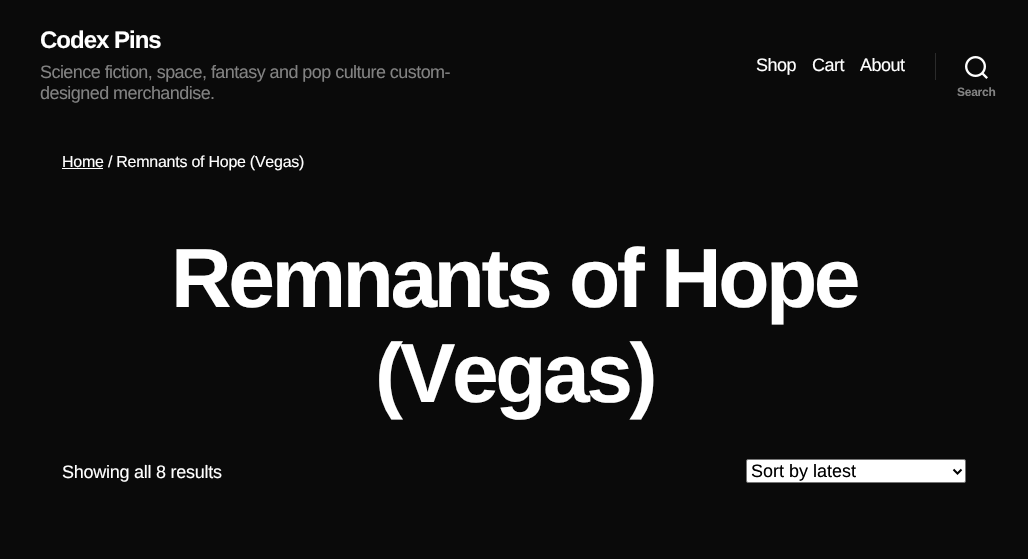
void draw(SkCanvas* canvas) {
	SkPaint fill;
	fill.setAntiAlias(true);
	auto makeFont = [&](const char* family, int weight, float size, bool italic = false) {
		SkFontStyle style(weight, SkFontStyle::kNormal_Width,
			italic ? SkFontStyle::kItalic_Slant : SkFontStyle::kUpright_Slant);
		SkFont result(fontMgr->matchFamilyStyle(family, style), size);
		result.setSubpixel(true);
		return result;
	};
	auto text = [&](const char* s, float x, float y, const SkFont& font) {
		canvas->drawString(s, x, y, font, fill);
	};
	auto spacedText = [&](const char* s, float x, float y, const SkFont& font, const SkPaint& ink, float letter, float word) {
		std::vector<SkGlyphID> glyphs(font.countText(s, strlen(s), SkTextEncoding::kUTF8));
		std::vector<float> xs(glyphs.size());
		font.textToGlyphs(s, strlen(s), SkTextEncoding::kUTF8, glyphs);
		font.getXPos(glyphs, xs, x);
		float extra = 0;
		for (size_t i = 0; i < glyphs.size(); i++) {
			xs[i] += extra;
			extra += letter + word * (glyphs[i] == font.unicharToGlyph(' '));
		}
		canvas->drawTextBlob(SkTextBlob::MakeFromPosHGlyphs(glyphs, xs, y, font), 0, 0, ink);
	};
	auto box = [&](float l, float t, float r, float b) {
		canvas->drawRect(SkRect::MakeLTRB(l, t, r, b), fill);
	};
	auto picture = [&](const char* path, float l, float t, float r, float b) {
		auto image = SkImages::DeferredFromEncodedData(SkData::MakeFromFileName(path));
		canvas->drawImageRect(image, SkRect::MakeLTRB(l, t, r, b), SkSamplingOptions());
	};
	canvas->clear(0xFF0A0A0A);
	fill.setColor(0xFF2B2B2B);
	box(935, 53, 936, 80);
	picture("image0.png", 965, 56, 988, 79);
	fill.setColor(0xFFFFFFFF);
	box(62, 168, 103, 169);
	canvas->drawRoundRect(SkRect::MakeLTRB(746.5f, 459.5f, 965.5f, 482.5f), 1.5f, 1.5f, fill);
	fill.setStyle(SkPaint::kStroke_Style);
	fill.setStrokeWidth(1);
	fill.setColor(0xFF767676);
	canvas->drawRoundRect(SkRect::MakeLTRB(746.5f, 459.5f, 965.5f, 482.5f), 1.5f, 1.5f, fill);
	fill.setStrokeWidth(2);
	fill.setColor(0xFF000000);
	canvas->drawPath(SkPathBuilder().moveTo(953.5f, 469.5f).lineTo(957.5f, 473.5f).lineTo(961.5f, 469.5f).detach(), fill);
	auto font1 = makeFont("Liberation Sans", 700, 24);
	fill.setStyle(SkPaint::kFill_Style);
	fill.setColor(0xFFFFFFFF);
	spacedText("Codex Pins", 40, 48, font1, fill, -1, 0);
	auto font2 = makeFont("Liberation Sans", 400, 18);
	fill.setColor(0xFF828282);
	spacedText("Science fiction, space, fantasy and pop culture custom-", 40, 78, font2, fill, -0.55f, 0);
	spacedText("designed merchandise.", 40, 99, font2, fill, -0.55f, 0);
	fill.setColor(0xFFFFFFFF);
	spacedText("Shop", 756, 71, font2, fill, -0.5f, 0);
	spacedText("Cart", 812, 71, font2, fill, -0.5f, 0);
	spacedText("About", 860, 71, font2, fill, -0.5f, 0);
	auto font3 = makeFont("Liberation Sans", 700, 12);
	fill.setColor(0xFF828282);
	spacedText("Search", 957, 96, font3, fill, -0.25f, 0);
	auto font4 = makeFont("Liberation Sans", 400, 16);
	fill.setColor(0xFFFFFFFF);
	spacedText("Home / Remnants of Hope (Vegas)", 62, 167, font4, fill, -0.25f, 0);
	auto font5 = makeFont("Liberation Sans", 700, 84);
	spacedText("Remnants of Hope", 171, 307, font5, fill, -3.5f, 0);
	spacedText("(Vegas)", 375, 402, font5, fill, -3.5f, 0);
	spacedText("Showing all 8 results", 62, 478, font2, fill, -0.25f, 0);
	fill.setColor(0xFF000000);
	text("Sort by latest", 751, 477, font2);
}
